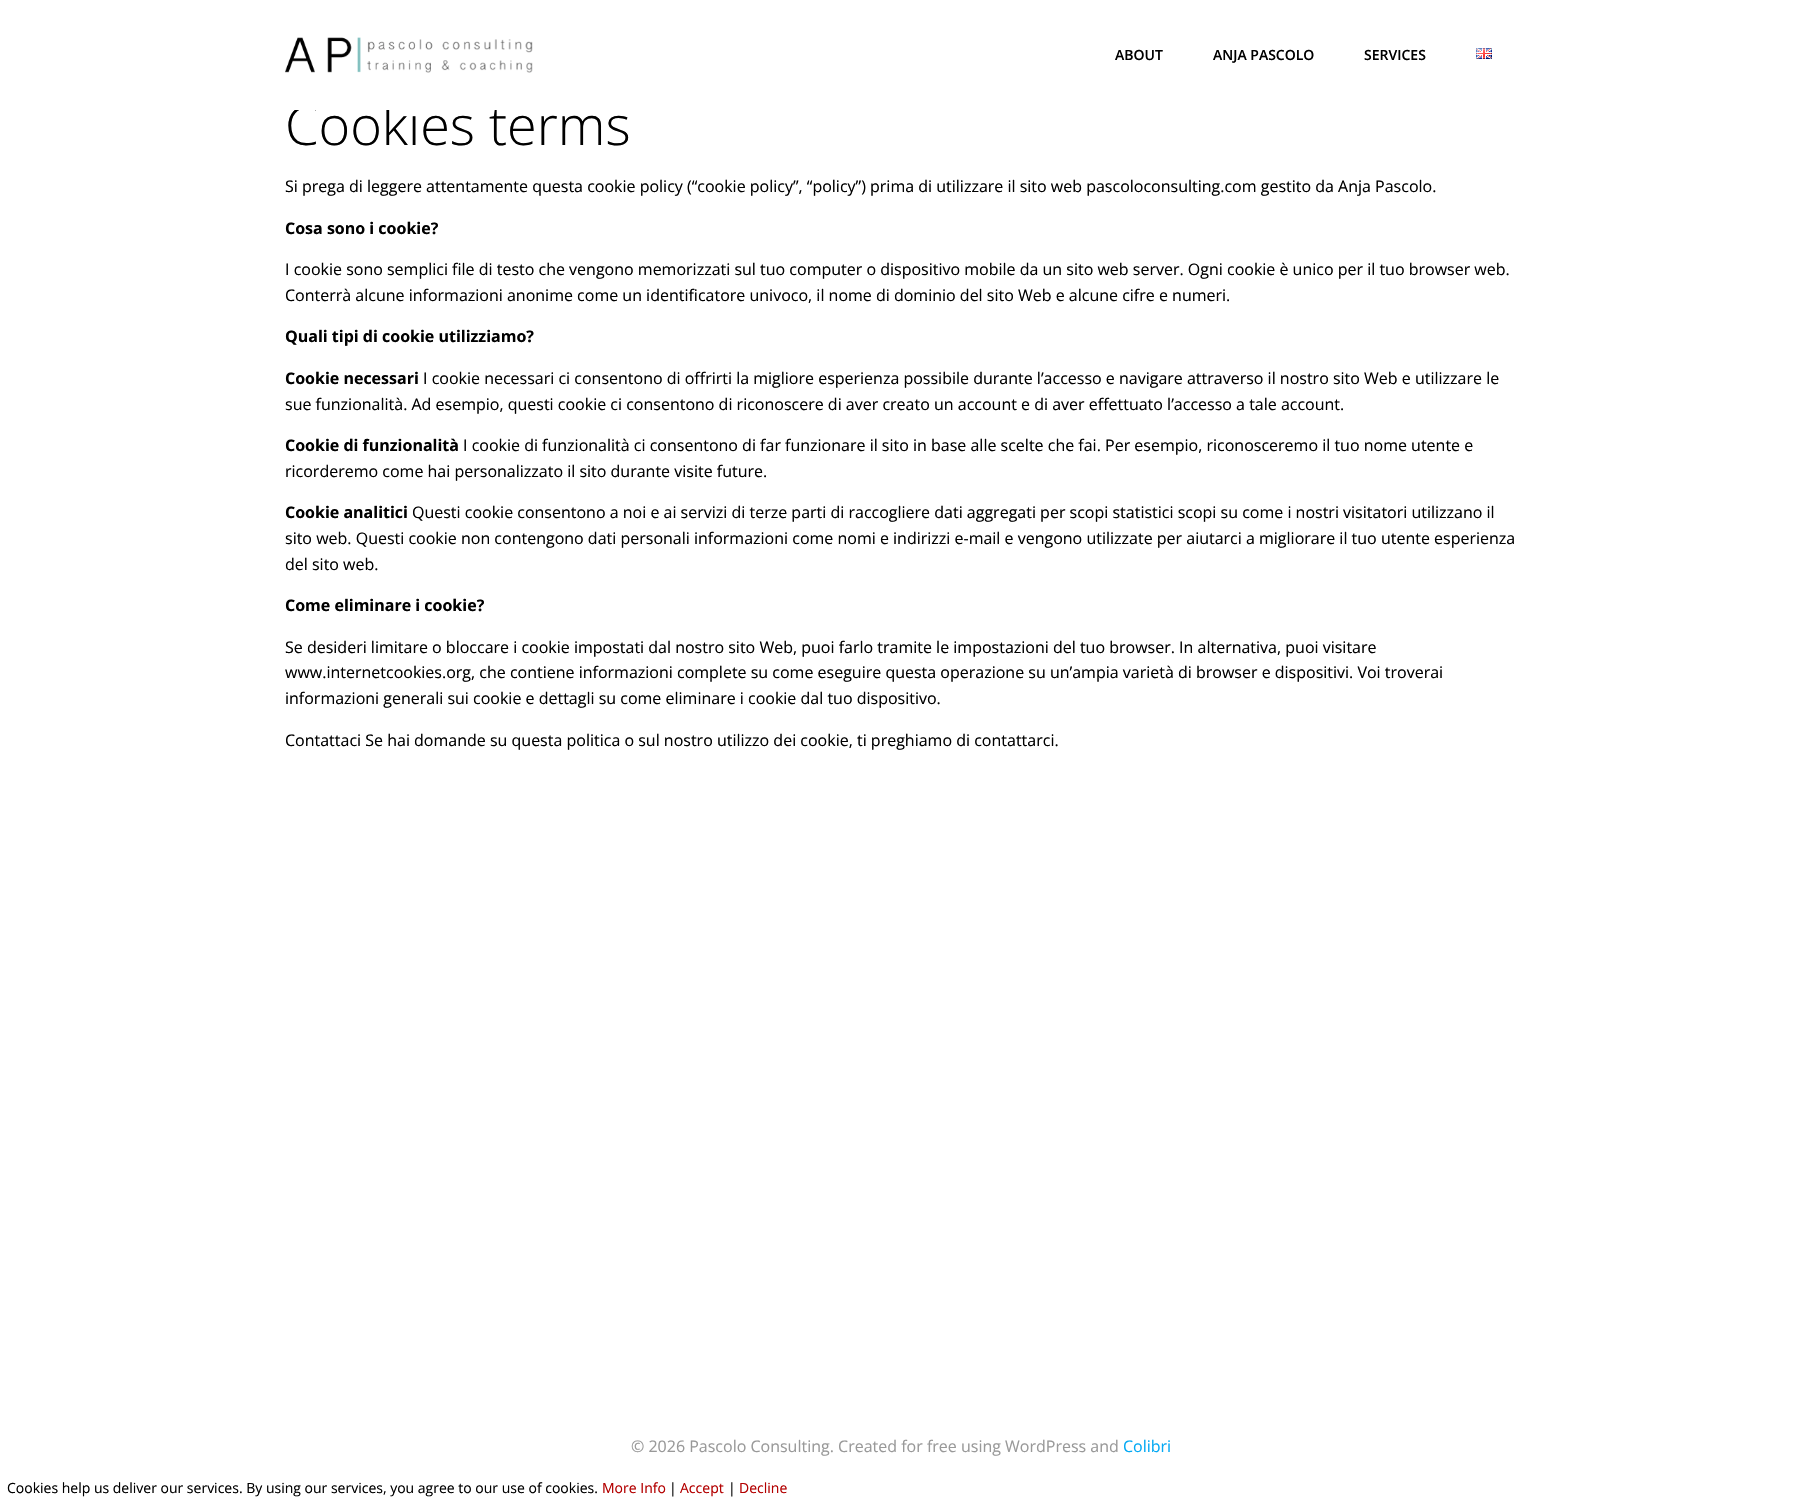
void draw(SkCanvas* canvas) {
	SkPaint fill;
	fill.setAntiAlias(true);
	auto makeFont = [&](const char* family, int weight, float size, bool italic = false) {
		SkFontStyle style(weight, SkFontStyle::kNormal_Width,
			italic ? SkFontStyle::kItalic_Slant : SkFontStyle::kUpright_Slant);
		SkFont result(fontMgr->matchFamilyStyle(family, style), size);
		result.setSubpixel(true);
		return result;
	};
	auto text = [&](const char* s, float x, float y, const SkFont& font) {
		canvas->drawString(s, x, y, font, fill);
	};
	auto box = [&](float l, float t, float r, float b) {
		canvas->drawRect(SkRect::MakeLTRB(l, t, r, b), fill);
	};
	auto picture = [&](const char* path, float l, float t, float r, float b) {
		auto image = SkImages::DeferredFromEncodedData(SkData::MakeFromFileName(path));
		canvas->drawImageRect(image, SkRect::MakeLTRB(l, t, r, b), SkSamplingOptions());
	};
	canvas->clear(0xFFFFFFFF);
	picture("image0.png", 285, 37, 533, 73);
	picture("image1.png", 1476, 48, 1492, 59);
	auto font1 = makeFont("Open Sans", 600, 14);
	fill.setColor(0xFF000000);
	text("ABOUT", 1115, 60, font1);
	text("ANJA PASCOLO", 1213, 60, font1);
	text("SERVICES", 1364, 60, font1);
	auto font2 = makeFont("Open Sans", 300, 54);
	text("Cookies terms", 285, 145, font2);
	fill.setColor(0xFFFFFFFF);
	box(294, 104, 497, 110);
	auto font3 = makeFont("Open Sans", 400, 16);
	fill.setColor(0xFF000000);
	text("Si prega di leggere attentamente questa cookie policy (“cookie policy”, “policy”) prima di utilizzare il sito web pascoloconsulting.com gestito da Anja Pascolo.", 285, 192, font3);
	auto font4 = makeFont("Open Sans", 700, 16);
	text("Cosa sono i cookie?", 285, 234, font4);
	text("I cookie sono semplici file di testo che vengono memorizzati sul tuo computer o dispositivo mobile da un sito web server. Ogni cookie è unico per il tuo browser web.", 285, 275, font3);
	text("Conterrà alcune informazioni anonime come un identificatore univoco, il nome di dominio del sito Web e alcune cifre e numeri.", 285, 301, font3);
	text("Quali tipi di cookie utilizziamo?", 285, 342, font4);
	text("Cookie necessari", 285, 384, font4);
	text("I cookie necessari ci consentono di offrirti la migliore esperienza possibile durante l’accesso e navigare attraverso il nostro sito Web e utilizzare le", 423, 384, font3);
	text("sue funzionalità. Ad esempio, questi cookie ci consentono di riconoscere di aver creato un account e di aver effettuato l’accesso a tale account.", 285, 410, font3);
	text("Cookie di funzionalità", 285, 451, font4);
	text("I cookie di funzionalità ci consentono di far funzionare il sito in base alle scelte che fai. Per esempio, riconosceremo il tuo nome utente e", 463, 451, font3);
	text("ricorderemo come hai personalizzato il sito durante visite future.", 285, 477, font3);
	text("Cookie analitici", 285, 518, font4);
	text("Questi cookie consentono a noi e ai servizi di terze parti di raccogliere dati aggregati per scopi statistici scopi su come i nostri visitatori utilizzano il", 412, 518, font3);
	text("sito web. Questi cookie non contengono dati personali informazioni come nomi e indirizzi e-mail e vengono utilizzate per aiutarci a migliorare il tuo utente esperienza", 285, 544, font3);
	text("del sito web.", 285, 570, font3);
	text("Come eliminare i cookie?", 285, 611, font4);
	text("Se desideri limitare o bloccare i cookie impostati dal nostro sito Web, puoi farlo tramite le impostazioni del tuo browser. In alternativa, puoi visitare", 285, 653, font3);
	text("www.internetcookies.org, che contiene informazioni complete su come eseguire questa operazione su un’ampia varietà di browser e dispositivi. Voi troverai", 285, 678, font3);
	text("informazioni generali sui cookie e dettagli su come eliminare i cookie dal tuo dispositivo.", 285, 704, font3);
	text("Contattaci Se hai domande su questa politica o sul nostro utilizzo dei cookie, ti preghiamo di contattarci.", 285, 746, font3);
	fill.setColor(0xFF999999);
	text("© 2026 Pascolo Consulting. Created for free using WordPress and", 631, 1452, font3);
	fill.setColor(0xFF03A9F4);
	text("Colibri", 1123, 1452, font3);
	auto font5 = makeFont("Open Sans", 400, 14);
	fill.setColor(0xFF000000);
	text("Cookies help us deliver our services. By using our services, you agree to our use of cookies.", 7, 1493, font5);
	fill.setColor(0xFFB30000);
	text("More Info", 602, 1493, font5);
	fill.setColor(0xFF000000);
	text("|", 669, 1493, font5);
	fill.setColor(0xFFB30000);
	text("Accept", 680, 1493, font5);
	fill.setColor(0xFF000000);
	text("|", 728, 1493, font5);
	fill.setColor(0xFFB30000);
	text("Decline", 739, 1493, font5);
}
